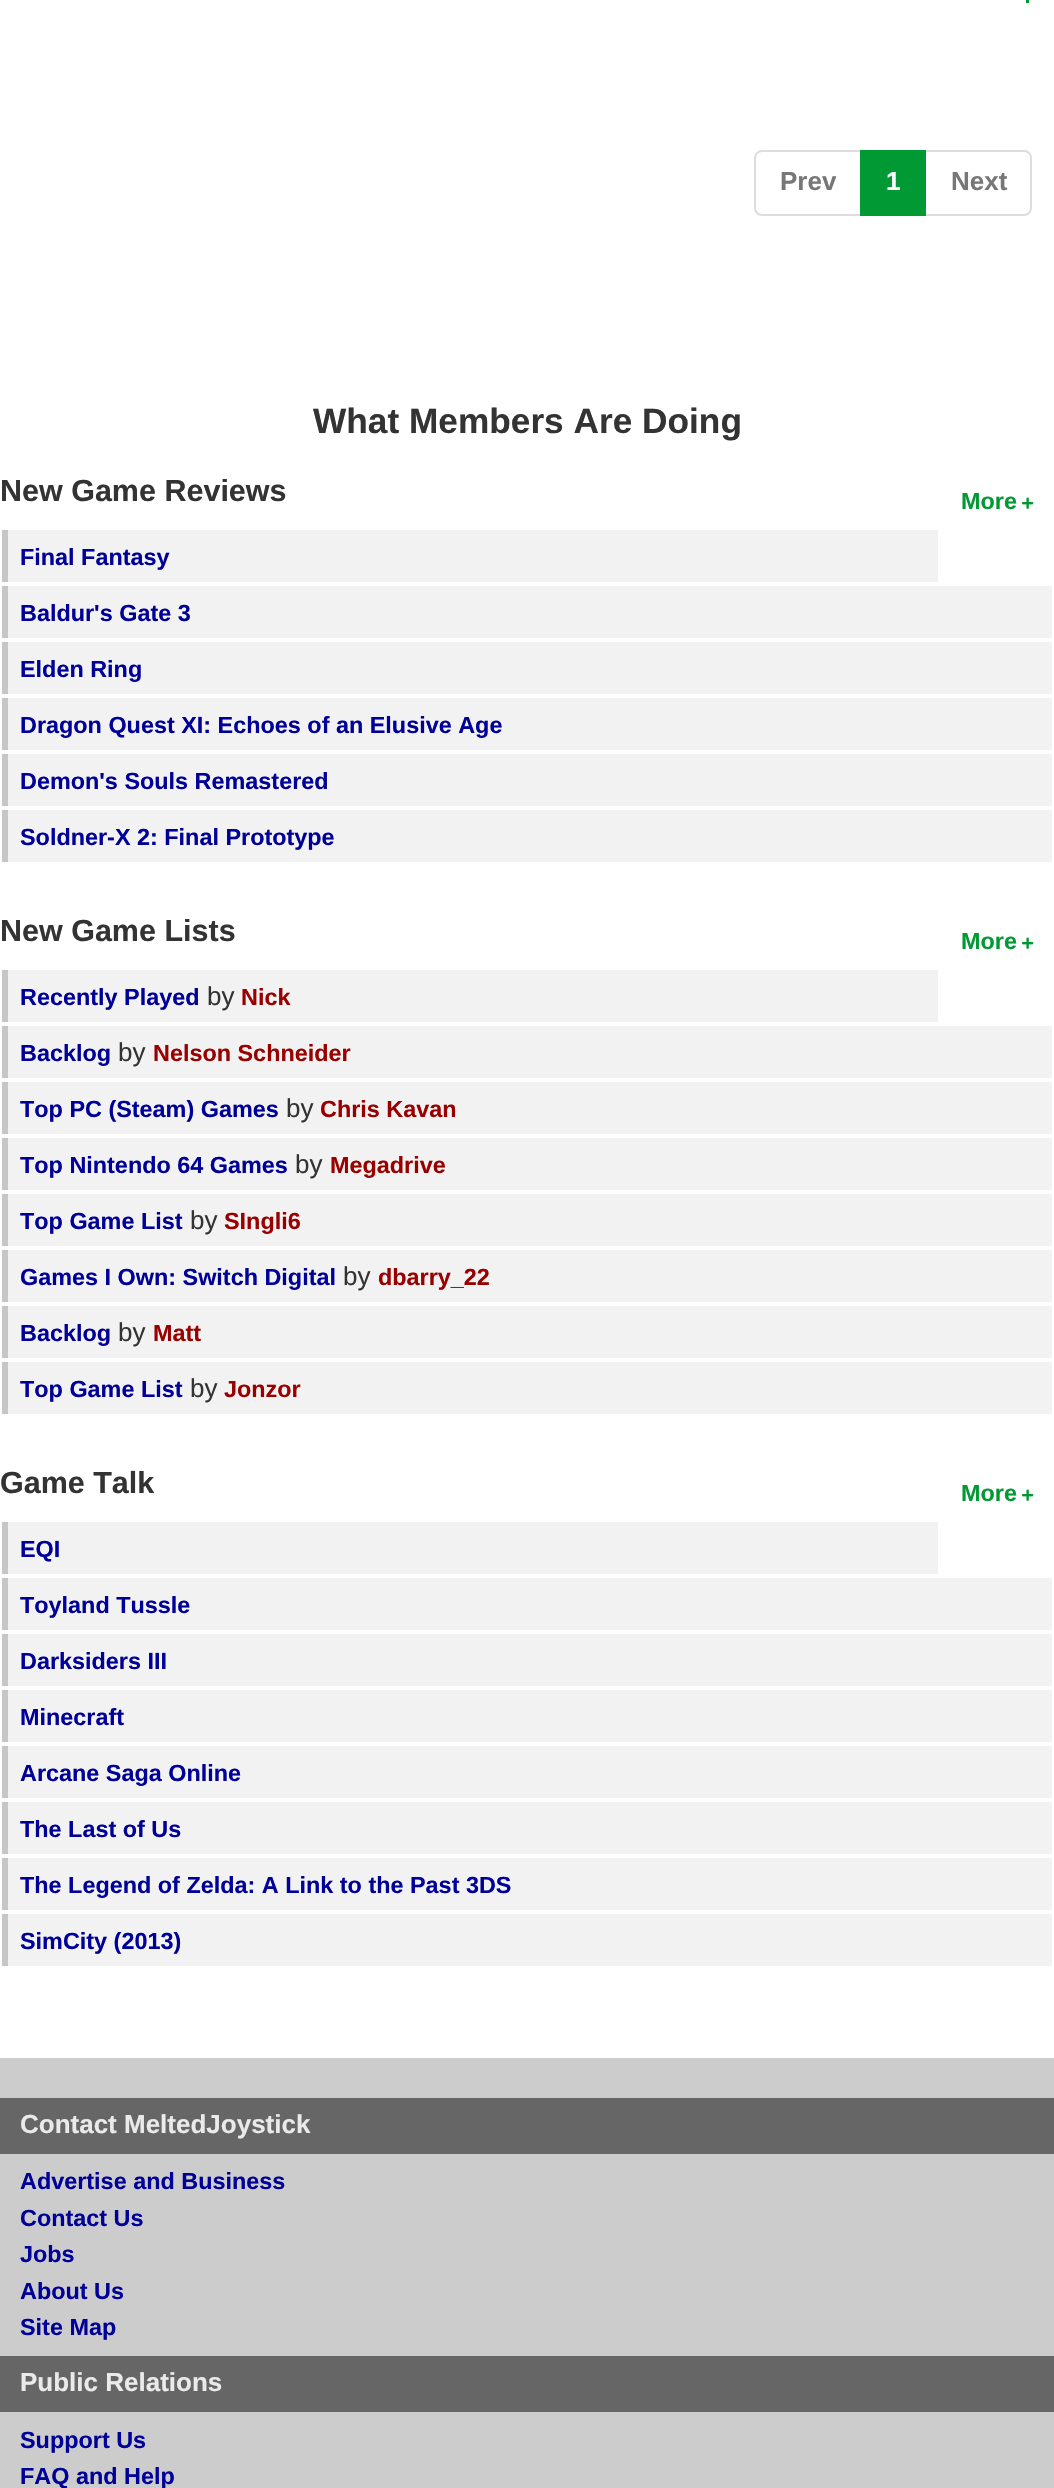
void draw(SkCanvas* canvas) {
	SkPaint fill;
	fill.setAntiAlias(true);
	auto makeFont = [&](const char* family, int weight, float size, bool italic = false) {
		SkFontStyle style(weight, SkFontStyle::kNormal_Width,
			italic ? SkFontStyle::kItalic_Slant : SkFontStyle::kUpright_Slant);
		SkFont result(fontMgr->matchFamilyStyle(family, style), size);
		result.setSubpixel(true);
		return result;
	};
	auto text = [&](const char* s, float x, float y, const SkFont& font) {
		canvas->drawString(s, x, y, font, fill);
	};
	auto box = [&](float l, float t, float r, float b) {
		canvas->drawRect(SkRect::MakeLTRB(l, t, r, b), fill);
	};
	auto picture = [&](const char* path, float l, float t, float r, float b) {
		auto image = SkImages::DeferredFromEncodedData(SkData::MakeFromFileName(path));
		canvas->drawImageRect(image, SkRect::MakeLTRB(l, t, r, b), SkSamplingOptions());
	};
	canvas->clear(0xFFFFFFFF);
	fill.setColor(0xFF009933);
	box(1026, 0, 1029, 3);
	fill.setStyle(SkPaint::kStroke_Style);
	fill.setStrokeWidth(2);
	fill.setColor(0xFFDDDDDD);
	canvas->drawPath(SkPathBuilder().moveTo(762, 151).lineTo(861, 151).lineTo(861, 215).lineTo(762, 215).cubicTo(758, 215, 755, 212, 755, 208).lineTo(755, 158).cubicTo(755, 154, 758, 151, 762, 151).close().detach(), fill);
	canvas->drawPath(SkPathBuilder().moveTo(925, 151).lineTo(1024, 151).cubicTo(1028, 151, 1031, 154, 1031, 158).lineTo(1031, 208).cubicTo(1031, 212, 1028, 215, 1024, 215).lineTo(925, 215).close().detach(), fill);
	fill.setStyle(SkPaint::kFill_Style);
	fill.setColor(0xFF009933);
	box(860, 150, 926, 216);
	picture("image0.png", 1022, 497, 1034, 509);
	fill.setColor(0xFFF2F2F2);
	box(8, 530, 938, 582);
	fill.setColor(0xFFC6C6C6);
	box(2, 530, 8, 582);
	fill.setColor(0xFFF2F2F2);
	box(8, 586, 1052, 638);
	fill.setColor(0xFFC6C6C6);
	box(2, 586, 8, 638);
	fill.setColor(0xFFF2F2F2);
	box(8, 642, 1052, 694);
	fill.setColor(0xFFC6C6C6);
	box(2, 642, 8, 694);
	fill.setColor(0xFFF2F2F2);
	box(8, 698, 1052, 750);
	fill.setColor(0xFFC6C6C6);
	box(2, 698, 8, 750);
	fill.setColor(0xFFF2F2F2);
	box(8, 754, 1052, 806);
	fill.setColor(0xFFC6C6C6);
	box(2, 754, 8, 806);
	fill.setColor(0xFFF2F2F2);
	box(8, 810, 1052, 862);
	fill.setColor(0xFFC6C6C6);
	box(2, 810, 8, 862);
	picture("image0.png", 1022, 937, 1034, 949);
	fill.setColor(0xFFF2F2F2);
	box(8, 970, 938, 1022);
	fill.setColor(0xFFC6C6C6);
	box(2, 970, 8, 1022);
	fill.setColor(0xFFF2F2F2);
	box(8, 1026, 1052, 1078);
	fill.setColor(0xFFC6C6C6);
	box(2, 1026, 8, 1078);
	fill.setColor(0xFFF2F2F2);
	box(8, 1082, 1052, 1134);
	fill.setColor(0xFFC6C6C6);
	box(2, 1082, 8, 1134);
	fill.setColor(0xFFF2F2F2);
	box(8, 1138, 1052, 1190);
	fill.setColor(0xFFC6C6C6);
	box(2, 1138, 8, 1190);
	fill.setColor(0xFFF2F2F2);
	box(8, 1194, 1052, 1246);
	fill.setColor(0xFFC6C6C6);
	box(2, 1194, 8, 1246);
	fill.setColor(0xFFF2F2F2);
	box(8, 1250, 1052, 1302);
	fill.setColor(0xFFC6C6C6);
	box(2, 1250, 8, 1302);
	fill.setColor(0xFFF2F2F2);
	box(8, 1306, 1052, 1358);
	fill.setColor(0xFFC6C6C6);
	box(2, 1306, 8, 1358);
	fill.setColor(0xFFF2F2F2);
	box(8, 1362, 1052, 1414);
	fill.setColor(0xFFC6C6C6);
	box(2, 1362, 8, 1414);
	picture("image0.png", 1022, 1489, 1034, 1501);
	fill.setColor(0xFFF2F2F2);
	box(8, 1522, 938, 1574);
	fill.setColor(0xFFC6C6C6);
	box(2, 1522, 8, 1574);
	fill.setColor(0xFFF2F2F2);
	box(8, 1578, 1052, 1630);
	fill.setColor(0xFFC6C6C6);
	box(2, 1578, 8, 1630);
	fill.setColor(0xFFF2F2F2);
	box(8, 1634, 1052, 1686);
	fill.setColor(0xFFC6C6C6);
	box(2, 1634, 8, 1686);
	fill.setColor(0xFFF2F2F2);
	box(8, 1690, 1052, 1742);
	fill.setColor(0xFFC6C6C6);
	box(2, 1690, 8, 1742);
	fill.setColor(0xFFF2F2F2);
	box(8, 1746, 1052, 1798);
	fill.setColor(0xFFC6C6C6);
	box(2, 1746, 8, 1798);
	fill.setColor(0xFFF2F2F2);
	box(8, 1802, 1052, 1854);
	fill.setColor(0xFFC6C6C6);
	box(2, 1802, 8, 1854);
	fill.setColor(0xFFF2F2F2);
	box(8, 1858, 1052, 1910);
	fill.setColor(0xFFC6C6C6);
	box(2, 1858, 8, 1910);
	fill.setColor(0xFFF2F2F2);
	box(8, 1914, 1052, 1966);
	fill.setColor(0xFFC6C6C6);
	box(2, 1914, 8, 1966);
	fill.setColor(0xFFCCCCCC);
	box(0, 2058, 1054, 2488);
	fill.setColor(0xFF666666);
	box(0, 2098, 1054, 2154);
	box(0, 2356, 1054, 2412);
	auto font1 = makeFont("Liberation Sans", 700, 26);
	fill.setColor(0xFF777777);
	text("Prev", 780, 190, font1);
	fill.setColor(0xFFFFFFFF);
	text("1", 886, 190, font1);
	fill.setColor(0xFF777777);
	text("Next", 951, 190, font1);
	auto font2 = makeFont("Liberation Sans", 700, 35.25f);
	fill.setColor(0xFF333333);
	text("What Members Are Doing", 313, 433, font2);
	auto font3 = makeFont("Liberation Sans", 700, 30.5f);
	text("New Game Reviews", 0, 501, font3);
	auto font4 = makeFont("Liberation Sans", 700, 23.4f);
	fill.setColor(0xFF009933);
	text("More", 961, 509, font4);
	fill.setColor(0xFF000099);
	text("Final Fantasy", 20, 565, font4);
	text("Baldur's Gate 3", 20, 621, font4);
	text("Elden Ring", 20, 677, font4);
	text("Dragon Quest XI: Echoes of an Elusive Age", 20, 733, font4);
	text("Demon's Souls Remastered", 20, 789, font4);
	text("Soldner-X 2: Final Prototype", 20, 845, font4);
	fill.setColor(0xFF333333);
	text("New Game Lists", 0, 941, font3);
	fill.setColor(0xFF009933);
	text("More", 961, 949, font4);
	fill.setColor(0xFF000099);
	text("Recently Played", 20, 1005, font4);
	auto font5 = makeFont("Liberation Sans", 400, 26);
	fill.setColor(0xFF333333);
	text("by", 207, 1005, font5);
	fill.setColor(0xFF990000);
	text("Nick", 241, 1005, font4);
	fill.setColor(0xFF000099);
	text("Backlog", 20, 1061, font4);
	fill.setColor(0xFF333333);
	text("by", 118, 1061, font5);
	fill.setColor(0xFF990000);
	text("Nelson Schneider", 153, 1061, font4);
	fill.setColor(0xFF000099);
	text("Top PC (Steam) Games", 20, 1117, font4);
	fill.setColor(0xFF333333);
	text("by", 286, 1117, font5);
	fill.setColor(0xFF990000);
	text("Chris Kavan", 320, 1117, font4);
	fill.setColor(0xFF000099);
	text("Top Nintendo 64 Games", 20, 1173, font4);
	fill.setColor(0xFF333333);
	text("by", 295, 1173, font5);
	fill.setColor(0xFF990000);
	text("Megadrive", 330, 1173, font4);
	fill.setColor(0xFF000099);
	text("Top Game List", 20, 1229, font4);
	fill.setColor(0xFF333333);
	text("by", 190, 1229, font5);
	fill.setColor(0xFF990000);
	text("SIngli6", 224, 1229, font4);
	fill.setColor(0xFF000099);
	text("Games I Own: Switch Digital", 20, 1285, font4);
	fill.setColor(0xFF333333);
	text("by", 343, 1285, font5);
	fill.setColor(0xFF990000);
	text("dbarry_22", 378, 1285, font4);
	fill.setColor(0xFF000099);
	text("Backlog", 20, 1341, font4);
	fill.setColor(0xFF333333);
	text("by", 118, 1341, font5);
	fill.setColor(0xFF990000);
	text("Matt", 153, 1341, font4);
	fill.setColor(0xFF000099);
	text("Top Game List", 20, 1397, font4);
	fill.setColor(0xFF333333);
	text("by", 190, 1397, font5);
	fill.setColor(0xFF990000);
	text("Jonzor", 224, 1397, font4);
	fill.setColor(0xFF333333);
	text("Game Talk", 0, 1493, font3);
	fill.setColor(0xFF009933);
	text("More", 961, 1501, font4);
	fill.setColor(0xFF000099);
	text("EQI", 20, 1557, font4);
	text("Toyland Tussle", 20, 1613, font4);
	text("Darksiders III", 20, 1669, font4);
	text("Minecraft", 20, 1725, font4);
	text("Arcane Saga Online", 20, 1781, font4);
	text("The Last of Us", 20, 1837, font4);
	text("The Legend of Zelda: A Link to the Past 3DS", 20, 1893, font4);
	text("SimCity (2013)", 20, 1949, font4);
	fill.setColor(0xFFEAEAEA);
	text("Contact MeltedJoystick", 20, 2133, font1);
	fill.setColor(0xFF000099);
	text("Advertise and Business", 20, 2189, font4);
	text("Contact Us", 20, 2226, font4);
	text("Jobs", 20, 2262, font4);
	text("About Us", 20, 2299, font4);
	text("Site Map", 20, 2335, font4);
	fill.setColor(0xFFEAEAEA);
	text("Public Relations", 20, 2391, font1);
	fill.setColor(0xFF000099);
	text("Support Us", 20, 2448, font4);
	text("FAQ and Help", 20, 2484, font4);
}
